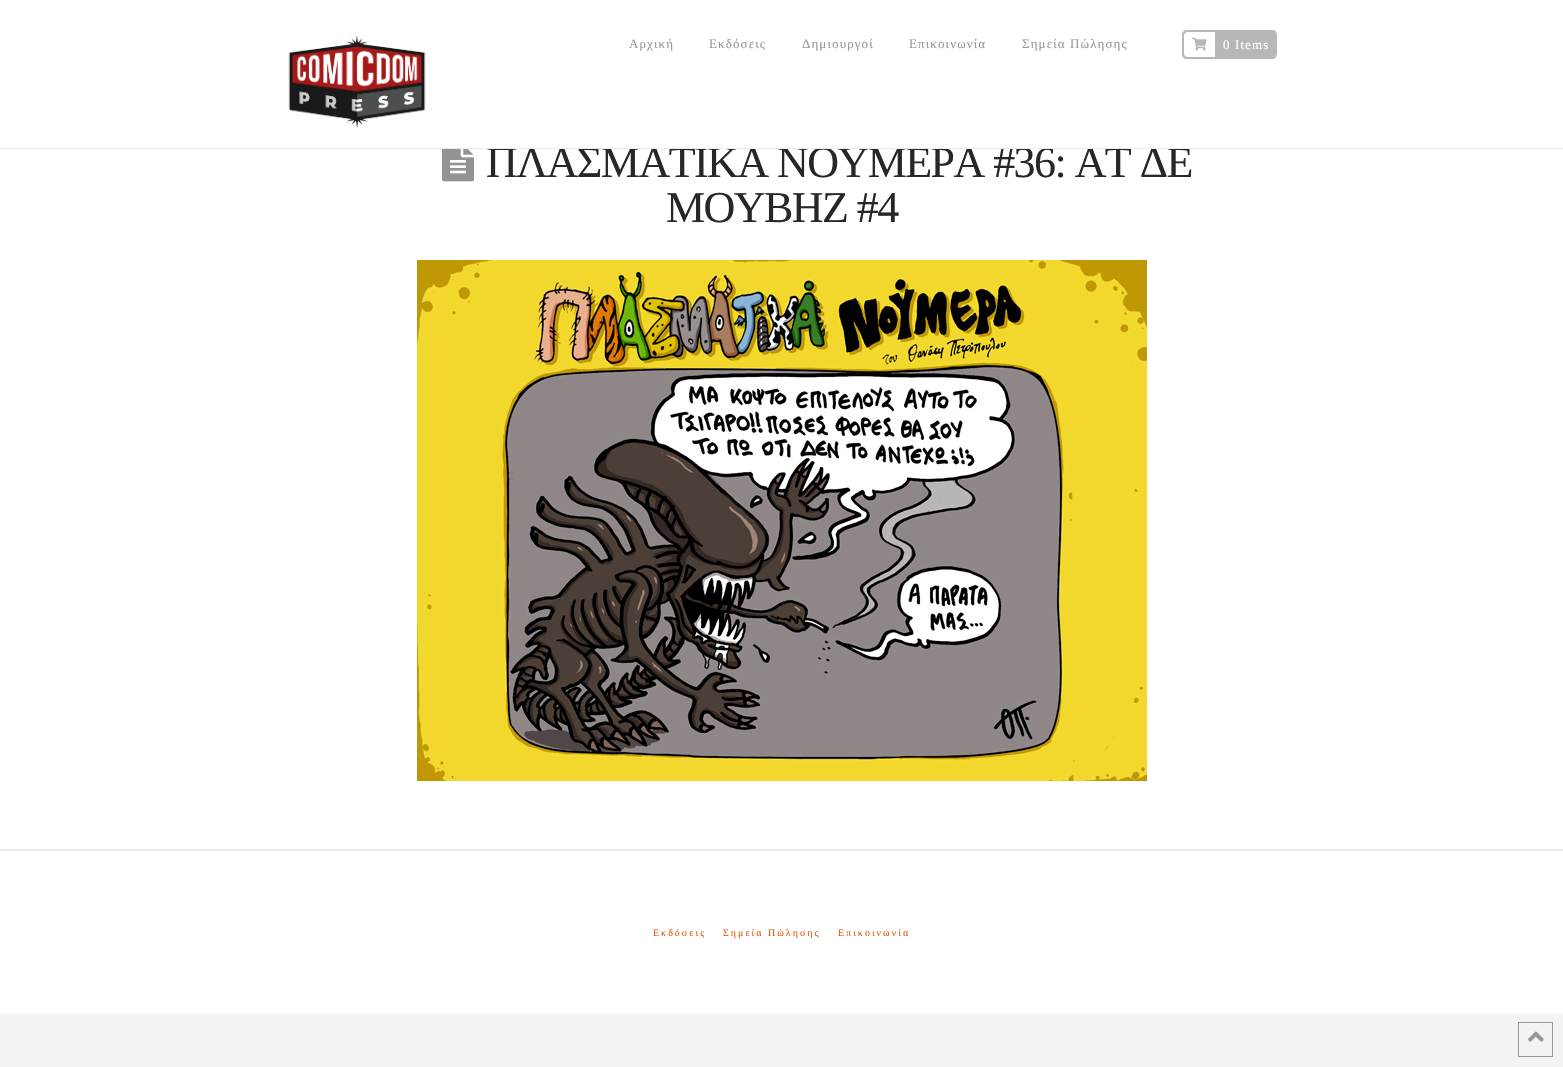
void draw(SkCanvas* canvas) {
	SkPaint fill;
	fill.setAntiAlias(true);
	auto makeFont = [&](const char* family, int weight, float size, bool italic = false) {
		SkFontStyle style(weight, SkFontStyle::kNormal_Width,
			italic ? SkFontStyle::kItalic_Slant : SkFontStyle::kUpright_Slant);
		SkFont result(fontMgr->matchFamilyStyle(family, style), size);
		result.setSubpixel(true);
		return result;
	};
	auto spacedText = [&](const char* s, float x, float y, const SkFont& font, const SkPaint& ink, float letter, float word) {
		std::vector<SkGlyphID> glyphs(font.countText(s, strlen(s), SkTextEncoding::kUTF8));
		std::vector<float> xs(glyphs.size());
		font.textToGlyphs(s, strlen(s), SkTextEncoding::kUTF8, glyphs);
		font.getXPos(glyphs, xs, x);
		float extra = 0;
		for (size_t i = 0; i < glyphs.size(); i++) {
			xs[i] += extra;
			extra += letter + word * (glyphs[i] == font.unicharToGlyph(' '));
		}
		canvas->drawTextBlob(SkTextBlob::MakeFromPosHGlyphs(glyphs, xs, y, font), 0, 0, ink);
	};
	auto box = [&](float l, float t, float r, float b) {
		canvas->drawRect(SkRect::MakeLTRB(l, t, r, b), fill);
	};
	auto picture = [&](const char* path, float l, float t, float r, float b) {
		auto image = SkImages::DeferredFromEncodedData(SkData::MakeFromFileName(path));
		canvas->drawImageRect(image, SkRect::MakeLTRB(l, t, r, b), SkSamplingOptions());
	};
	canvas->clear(0xFFF3F3F3);
	fill.setColor(0xFFFFFFFF);
	box(0, 149, 1563, 1014);
	fill.setColor(0xFFECECEC);
	box(0, 849, 1563, 851);
	picture("image2.png", 442, 149, 474, 182);
	picture("image3.png", 417, 260, 1147, 781);
	fill.setStyle(SkPaint::kStroke_Style);
	fill.setStrokeWidth(1);
	fill.setColor(0xFF989898);
	canvas->drawRect(SkRect::MakeLTRB(1518.5f, 1022.5f, 1552.5f, 1056.5f), fill);
	picture("image4.png", 1528, 1031, 1544, 1042);
	auto font1 = makeFont("Liberation Serif", 400, 44);
	fill.setStyle(SkPaint::kFill_Style);
	fill.setColor(0xFF272727);
	spacedText("ΠΛΑΣΜΑΤΙΚΑ ΝΟΥΜΕΡΑ #36: ΑΤ ΔΕ", 486, 177, font1, fill, -1.55f, 0);
	fill.setColor(0xFFFFFFFF);
	box(0, 0, 1563, 148);
	fill.setColor(0xFFB7B7B7);
	canvas->drawPath(SkPathBuilder(SkPathFillType::kEvenOdd).moveTo(1187, 30).lineTo(1272, 30).cubicTo(1275, 30, 1277, 32, 1277, 35).lineTo(1277, 54).cubicTo(1277, 57, 1275, 59, 1272, 59).lineTo(1187, 59).cubicTo(1184, 59, 1182, 57, 1182, 54).lineTo(1182, 35).cubicTo(1182, 32, 1184, 30, 1187, 30).close().moveTo(1187, 32).lineTo(1272, 32).cubicTo(1275, 32, 1277, 34, 1277, 35).lineTo(1277, 54).cubicTo(1277, 55, 1275, 57, 1272, 57).lineTo(1187, 57).cubicTo(1186, 57, 1184, 55, 1184, 54).lineTo(1184, 35).cubicTo(1184, 34, 1186, 32, 1187, 32).close().detach(), fill);
	canvas->drawPath(SkPathBuilder().moveTo(1215, 32).lineTo(1215, 57).lineTo(1272, 57).cubicTo(1275, 57, 1277, 55, 1277, 54).lineTo(1277, 35).cubicTo(1277, 34, 1275, 32, 1272, 32).close().detach(), fill);
	auto font2 = makeFont("Liberation Serif", 400, 13);
	fill.setColor(0xFFFFFFFF);
	spacedText("0 Items", 1223, 49, font2, fill, 1.1f, 0);
	picture("image1.png", 1192, 37, 1207, 51);
	fill.setColor(0xFF999999);
	spacedText("Σημεία Πώλησης", 1022, 48, font2, fill, 1.1f, 0);
	spacedText("Επικοινωνία", 909, 48, font2, fill, 1.1f, 0);
	spacedText("Δημιουργοί", 802, 48, font2, fill, 1.1f, 0);
	spacedText("Εκδόσεις", 709, 48, font2, fill, 1.1f, 0);
	spacedText("Αρχική", 629, 48, font2, fill, 1.1f, 0);
	picture("image0.png", 288, 35, 426, 128);
	fill.setColor(0xFFECECEC);
	box(0, 148, 1563, 149);
	fill.setColor(0xFF272727);
	spacedText("ΜΟΥΒΗΖ #4", 666, 222, font1, fill, -1.55f, 0);
	auto font3 = makeFont("Liberation Serif", 400, 10);
	fill.setColor(0xFFEA5407);
	spacedText("Εκδόσεις", 653, 936, font3, fill, 2, 0);
	spacedText("Σημεία Πώλησης", 723, 936, font3, fill, 2, 0);
	spacedText("Επικοινωνία", 838, 936, font3, fill, 2, 0);
}
